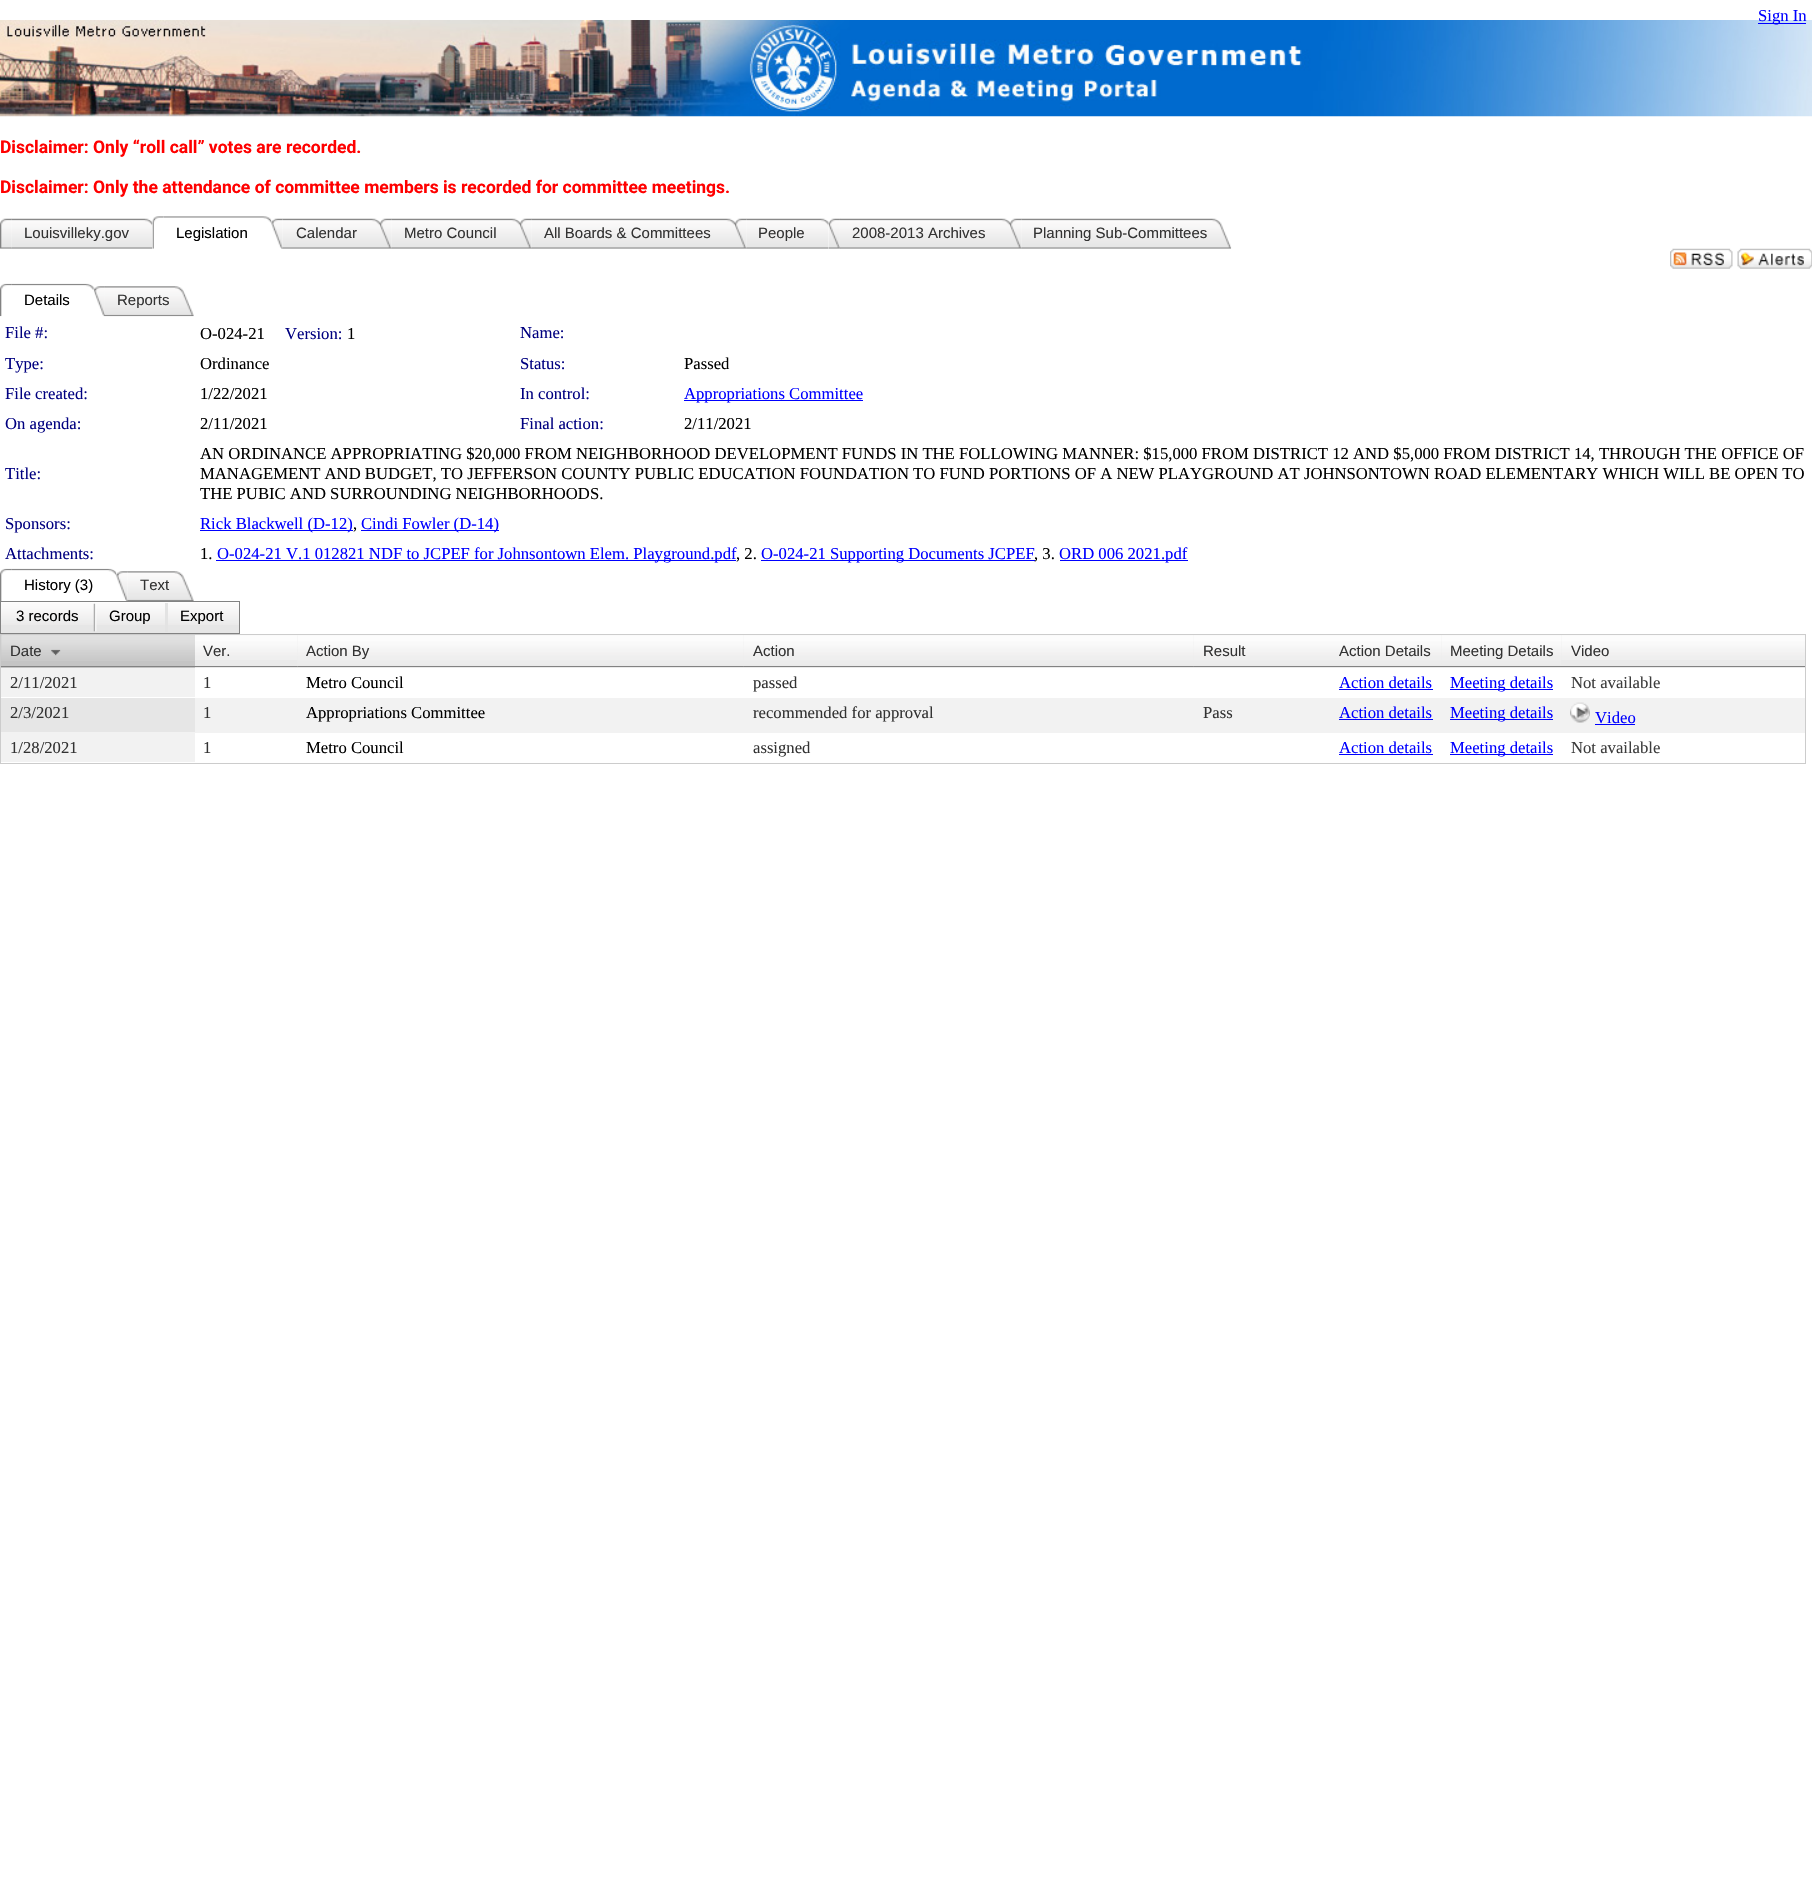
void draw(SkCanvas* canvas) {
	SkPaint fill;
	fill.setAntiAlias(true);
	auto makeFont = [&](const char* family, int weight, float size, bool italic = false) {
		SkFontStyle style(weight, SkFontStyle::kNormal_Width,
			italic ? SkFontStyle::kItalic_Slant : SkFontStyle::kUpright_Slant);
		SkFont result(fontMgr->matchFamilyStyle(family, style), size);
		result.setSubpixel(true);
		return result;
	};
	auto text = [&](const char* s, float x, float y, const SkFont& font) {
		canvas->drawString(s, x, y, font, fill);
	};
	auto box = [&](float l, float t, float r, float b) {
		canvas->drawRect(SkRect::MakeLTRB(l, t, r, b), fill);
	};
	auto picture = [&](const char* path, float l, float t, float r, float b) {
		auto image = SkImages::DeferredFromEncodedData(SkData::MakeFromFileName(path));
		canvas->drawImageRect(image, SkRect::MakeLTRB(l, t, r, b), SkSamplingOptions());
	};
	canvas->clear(0xFFFFFFFF);
	picture("image0.png", 0, 20, 1812, 117);
	fill.setColor(0xFF0000FF);
	box(1758, 23, 1806, 24);
	picture("image1.png", 0, 218, 12, 249);
	picture("image2.png", 11, 218, 153, 249);
	picture("image3.png", 152, 216, 164, 249);
	picture("image4.png", 163, 216, 272, 223);
	picture("image5.png", 271, 218, 283, 249);
	picture("image6.png", 282, 218, 380, 249);
	picture("image7.png", 380, 218, 392, 249);
	picture("image8.png", 391, 218, 520, 249);
	picture("image9.png", 520, 218, 532, 249);
	picture("image10.png", 531, 218, 735, 249);
	picture("image11.png", 735, 218, 747, 249);
	picture("image12.png", 746, 218, 829, 249);
	picture("image13.png", 828, 218, 841, 249);
	picture("image14.png", 840, 218, 1010, 249);
	picture("image15.png", 1010, 218, 1022, 249);
	picture("image16.png", 1021, 218, 1232, 249);
	picture("image17.png", 1670, 248, 1733, 269);
	picture("image18.png", 1737, 248, 1812, 269);
	picture("image19.png", 0, 283, 12, 317);
	picture("image20.png", 11, 283, 94, 290);
	picture("image21.png", 93, 286, 106, 317);
	picture("image22.png", 105, 286, 194, 317);
	box(684, 400, 863, 401);
	box(200, 530, 353, 531);
	box(361, 530, 499, 531);
	box(216, 560, 736, 561);
	box(761, 560, 1035, 561);
	box(1060, 560, 1188, 561);
	picture("image23.png", 0, 568, 12, 601);
	picture("image24.png", 11, 568, 117, 576);
	picture("image25.png", 116, 571, 128, 601);
	picture("image26.png", 127, 571, 194, 601);
	fill.setColor(0xFFE6E6E6);
	box(1, 625, 239, 633);
	picture("image27.png", 1, 602, 239, 625);
	fill.setStyle(SkPaint::kStroke_Style);
	fill.setStrokeWidth(1);
	fill.setColor(0xFF828282);
	canvas->drawRect(SkRect::MakeLTRB(0.5f, 601.5f, 239.5f, 633.5f), fill);
	picture("image28.png", 93, 603, 97, 632);
	fill.setStyle(SkPaint::kFill_Style);
	fill.setColor(0xFFE3E3E3);
	box(165, 603, 168, 632);
	fill.setStyle(SkPaint::kStroke_Style);
	fill.setColor(0xFFCCCCCC);
	canvas->drawRect(SkRect::MakeLTRB(0.5f, 634.5f, 1805.5f, 763.5f), fill);
	fill.setStyle(SkPaint::kFill_Style);
	fill.setColor(0xFFC4C4C4);
	box(1, 635, 195, 668);
	picture("image29.png", 1, 635, 195, 661);
	fill.setColor(0xFF828282);
	box(1, 666, 195, 667);
	picture("image30.png", 51, 649, 61, 656);
	fill.setColor(0xFFEAEAEA);
	box(195, 635, 1805, 668);
	picture("image31.png", 195, 635, 298, 660);
	fill.setColor(0xFF828282);
	box(195, 666, 298, 667);
	picture("image32.png", 297, 635, 744, 667);
	box(298, 666, 744, 667);
	picture("image33.png", 743, 635, 1194, 667);
	box(744, 666, 1194, 667);
	picture("image34.png", 1193, 635, 1330, 667);
	box(1194, 666, 1805, 667);
	picture("image35.png", 1330, 635, 1441, 666);
	picture("image36.png", 1441, 635, 1561, 666);
	picture("image37.png", 1561, 635, 1805, 660);
	fill.setColor(0xFFF2F2F2);
	box(1, 668, 195, 697);
	fill.setColor(0xFF0000FF);
	box(1339, 689, 1433, 690);
	box(1450, 689, 1553, 690);
	fill.setColor(0xFFF2F2F2);
	box(1, 698, 1805, 733);
	fill.setColor(0xFFE6E6E6);
	box(1, 698, 195, 732);
	fill.setColor(0xFF0000FF);
	box(1339, 719, 1433, 720);
	box(1450, 719, 1553, 720);
	picture("image38.png", 1570, 702, 1590, 723);
	box(1595, 724, 1635, 725);
	fill.setColor(0xFFF2F2F2);
	box(1, 733, 195, 762);
	fill.setColor(0xFF0000FF);
	box(1339, 754, 1433, 755);
	box(1450, 754, 1553, 755);
	auto font1 = makeFont("Liberation Serif", 400, 16.67f);
	text("Sign In", 1758, 21, font1);
	auto font2 = makeFont("Roboto", 700, 17.5f);
	fill.setColor(0xFFFF0000);
	text("Disclaimer: Only “roll call” votes are recorded.", 0, 153, font2);
	text("Disclaimer: Only the attendance of committee members is recorded for committee meetings.", 0, 193, font2);
	auto font3 = makeFont("Liberation Sans", 400, 15);
	fill.setColor(0xFF333333);
	text("Louisvilleky.gov", 24, 238, font3);
	fill.setColor(0xFF000000);
	text("Legislation", 176, 238, font3);
	fill.setColor(0xFF333333);
	text("Calendar", 296, 238, font3);
	text("Metro Council", 404, 238, font3);
	text("All Boards & Committees", 544, 238, font3);
	text("People", 758, 238, font3);
	text("2008-2013 Archives", 852, 238, font3);
	text("Planning Sub-Committees", 1033, 238, font3);
	fill.setColor(0xFF000000);
	text("Details", 24, 305, font3);
	fill.setColor(0xFF333333);
	text("Reports", 117, 305, font3);
	fill.setColor(0xFF000080);
	text("File #:", 5, 338, font1);
	fill.setColor(0xFF000000);
	text("O-024-21", 200, 339, font1);
	fill.setColor(0xFF000080);
	text("Version:", 285, 339, font1);
	fill.setColor(0xFF000000);
	text("1", 347, 339, font1);
	fill.setColor(0xFF000080);
	text("Name:", 520, 338, font1);
	text("Type:", 5, 369, font1);
	fill.setColor(0xFF000000);
	text("Ordinance", 200, 369, font1);
	fill.setColor(0xFF000080);
	text("Status:", 520, 369, font1);
	fill.setColor(0xFF000000);
	text("Passed", 684, 369, font1);
	fill.setColor(0xFF000080);
	text("File created:", 5, 399, font1);
	fill.setColor(0xFF000000);
	text("1/22/2021", 200, 399, font1);
	fill.setColor(0xFF000080);
	text("In control:", 520, 399, font1);
	fill.setColor(0xFF0000FF);
	text("Appropriations Committee", 684, 399, font1);
	fill.setColor(0xFF000080);
	text("On agenda:", 5, 429, font1);
	fill.setColor(0xFF000000);
	text("2/11/2021", 200, 429, font1);
	fill.setColor(0xFF000080);
	text("Final action:", 520, 429, font1);
	fill.setColor(0xFF000000);
	text("2/11/2021", 684, 429, font1);
	fill.setColor(0xFF000080);
	text("Title:", 5, 479, font1);
	fill.setColor(0xFF000000);
	text("AN ORDINANCE APPROPRIATING $20,000 FROM NEIGHBORHOOD DEVELOPMENT FUNDS IN THE FOLLOWING MANNER: $15,000 FROM DISTRICT 12 AND $5,000 FROM DISTRICT 14, THROUGH THE OFFICE OF", 200, 459, font1);
	text("MANAGEMENT AND BUDGET, TO JEFFERSON COUNTY PUBLIC EDUCATION FOUNDATION TO FUND PORTIONS OF A NEW PLAYGROUND AT JOHNSONTOWN ROAD ELEMENTARY WHICH WILL BE OPEN TO", 200, 479, font1);
	text("THE PUBIC AND SURROUNDING NEIGHBORHOODS.", 200, 499, font1);
	fill.setColor(0xFF000080);
	text("Sponsors:", 5, 529, font1);
	fill.setColor(0xFF0000FF);
	text("Rick Blackwell (D-12)", 200, 529, font1);
	fill.setColor(0xFF000000);
	text(",", 353, 529, font1);
	fill.setColor(0xFF0000FF);
	text("Cindi Fowler (D-14)", 361, 529, font1);
	fill.setColor(0xFF000080);
	text("Attachments:", 5, 559, font1);
	fill.setColor(0xFF000000);
	text("1.", 200, 559, font1);
	fill.setColor(0xFF0000FF);
	text("O-024-21 V.1 012821 NDF to JCPEF for Johnsontown Elem. Playground.pdf", 217, 559, font1);
	fill.setColor(0xFF000000);
	text(", 2.", 736, 559, font1);
	fill.setColor(0xFF0000FF);
	text("O-024-21 Supporting Documents JCPEF", 761, 559, font1);
	fill.setColor(0xFF000000);
	text(", 3.", 1034, 559, font1);
	fill.setColor(0xFF0000FF);
	text("ORD 006 2021.pdf", 1059, 559, font1);
	fill.setColor(0xFF000000);
	text("History (3)", 24, 590, font3);
	fill.setColor(0xFF333333);
	text("Text", 140, 590, font3);
	fill.setColor(0xFF000000);
	text("3 records", 16, 621, font3);
	text("Group", 109, 621, font3);
	text("Export", 180, 621, font3);
	fill.setColor(0xFF333333);
	text("Date", 10, 656, font3);
	text("Ver.", 203, 656, font3);
	text("Action By", 306, 656, font3);
	text("Action", 753, 656, font3);
	text("Result", 1203, 656, font3);
	text("Action Details", 1339, 656, font3);
	text("Meeting Details", 1450, 656, font3);
	text("Video", 1571, 656, font3);
	text("2/11/2021", 10, 688, font1);
	text("1", 203, 688, font1);
	fill.setColor(0xFF000000);
	text("Metro Council", 306, 688, font1);
	fill.setColor(0xFF333333);
	text("passed", 753, 688, font1);
	fill.setColor(0xFF0000FF);
	text("Action details", 1339, 688, font1);
	text("Meeting details", 1450, 688, font1);
	fill.setColor(0xFF3D3D3D);
	text("Not available", 1571, 688, font1);
	fill.setColor(0xFF333333);
	text("2/3/2021", 10, 718, font1);
	text("1", 203, 718, font1);
	fill.setColor(0xFF000000);
	text("Appropriations Committee", 306, 718, font1);
	fill.setColor(0xFF333333);
	text("recommended for approval", 753, 718, font1);
	text("Pass", 1203, 718, font1);
	fill.setColor(0xFF0000FF);
	text("Action details", 1339, 718, font1);
	text("Meeting details", 1450, 718, font1);
	text("Video", 1595, 723, font1);
	fill.setColor(0xFF333333);
	text("1/28/2021", 10, 753, font1);
	text("1", 203, 753, font1);
	fill.setColor(0xFF000000);
	text("Metro Council", 306, 753, font1);
	fill.setColor(0xFF333333);
	text("assigned", 753, 753, font1);
	fill.setColor(0xFF0000FF);
	text("Action details", 1339, 753, font1);
	text("Meeting details", 1450, 753, font1);
	fill.setColor(0xFF3D3D3D);
	text("Not available", 1571, 753, font1);
}
